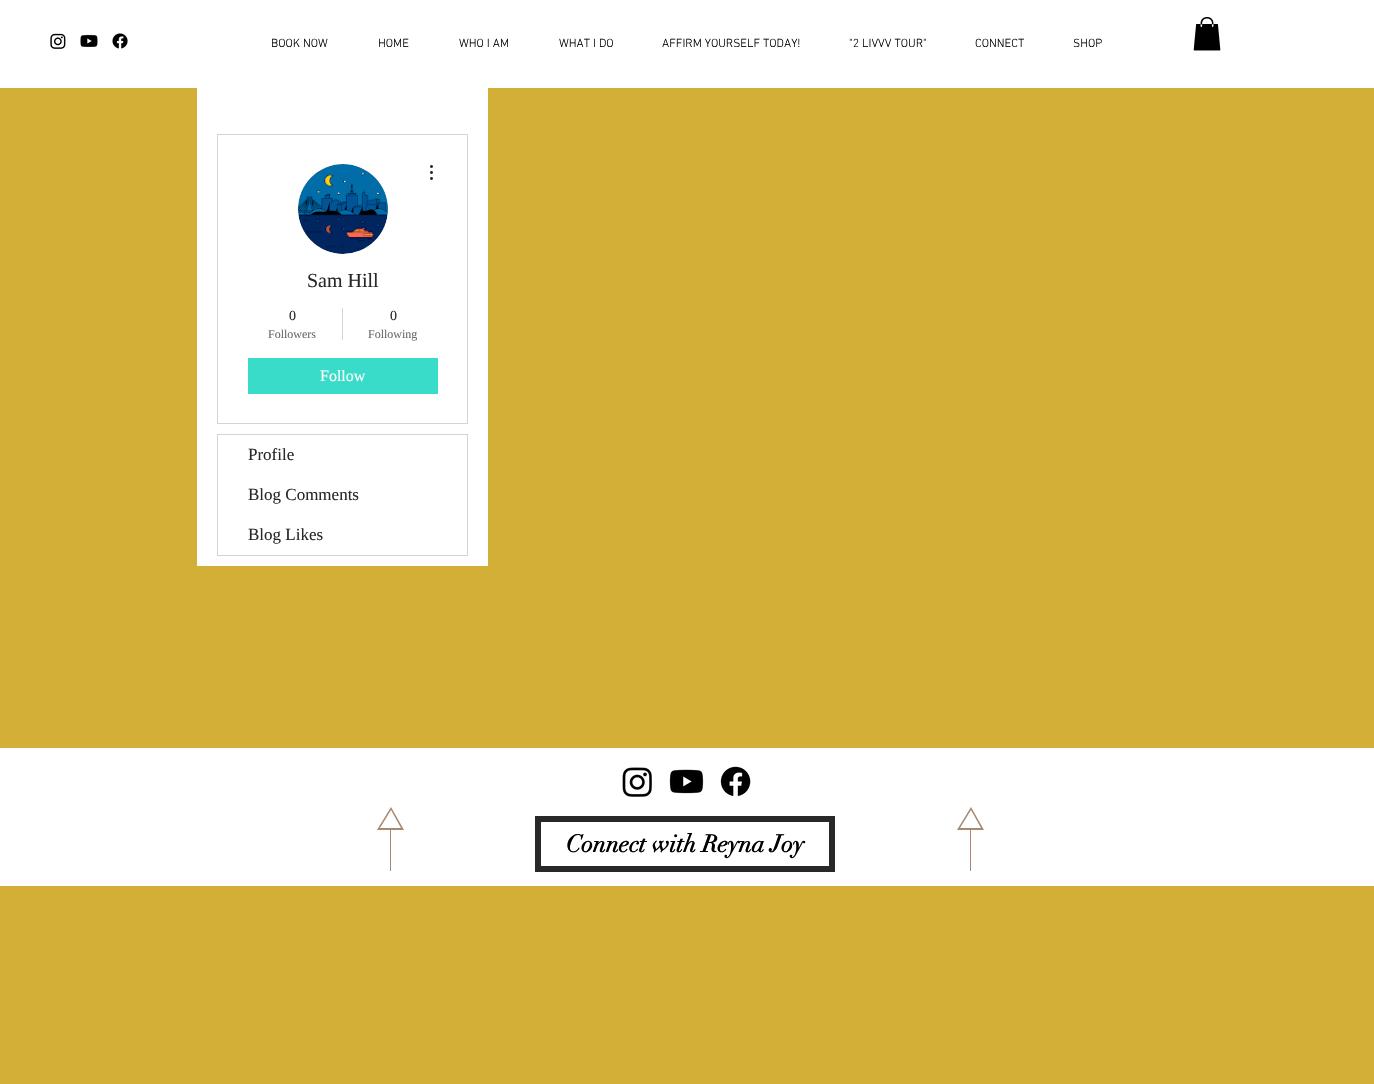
void draw(SkCanvas* canvas) {
	SkPaint fill;
	fill.setAntiAlias(true);
	auto makeFont = [&](const char* family, int weight, float size, bool italic = false) {
		SkFontStyle style(weight, SkFontStyle::kNormal_Width,
			italic ? SkFontStyle::kItalic_Slant : SkFontStyle::kUpright_Slant);
		SkFont result(fontMgr->matchFamilyStyle(family, style), size);
		result.setSubpixel(true);
		return result;
	};
	auto text = [&](const char* s, float x, float y, const SkFont& font) {
		canvas->drawString(s, x, y, font, fill);
	};
	auto box = [&](float l, float t, float r, float b) {
		canvas->drawRect(SkRect::MakeLTRB(l, t, r, b), fill);
	};
	auto picture = [&](const char* path, float l, float t, float r, float b) {
		auto image = SkImages::DeferredFromEncodedData(SkData::MakeFromFileName(path));
		canvas->drawImageRect(image, SkRect::MakeLTRB(l, t, r, b), SkSamplingOptions());
	};
	canvas->clear(0xFFD4AF37);
	fill.setColor(0xFFFFFFFF);
	box(0, 0, 1374, 88);
	picture("image0.png", 50, 33, 66, 49);
	picture("image1.png", 80, 34, 98, 47);
	picture("image2.png", 112, 33, 128, 49);
	picture("image3.png", 1193, 17, 1221, 51);
	box(197, 88, 488, 566);
	fill.setStyle(SkPaint::kStroke_Style);
	fill.setStrokeWidth(1);
	fill.setColor(0xFFD4D4D4);
	canvas->drawRect(SkRect::MakeLTRB(217.5f, 134.5f, 467.5f, 423.5f), fill);
	fill.setStyle(SkPaint::kFill_Style);
	fill.setColor(0xFFD8D8D8);
	canvas->drawCircle(343, 209, 45, fill);
	picture("image4.png", 298, 164, 388, 254);
	picture("image5.png", 430, 165, 433, 180);
	fill.setColor(0xFFD4D4D4);
	box(342, 308, 343, 340);
	fill.setColor(0xFF38DCC8);
	box(248, 358, 438, 394);
	fill.setStyle(SkPaint::kStroke_Style);
	fill.setColor(0xFFD4D4D4);
	canvas->drawRect(SkRect::MakeLTRB(217.5f, 434.5f, 467.5f, 555.5f), fill);
	fill.setStyle(SkPaint::kFill_Style);
	fill.setColor(0xFFFFFFFF);
	box(0, 748, 1374, 886);
	picture("image6.png", 622, 767, 652, 797);
	picture("image7.png", 669, 769, 704, 794);
	picture("image8.png", 720, 766, 751, 796);
	fill.setColor(0xFFA78972);
	canvas->drawPath(SkPathBuilder().moveTo(404, 830).lineTo(391, 807).lineTo(377, 830).lineTo(390, 830).lineTo(390, 871).lineTo(391, 871).lineTo(391, 830).close().moveTo(391, 810).lineTo(401, 828).lineTo(380, 828).close().detach(), fill);
	fill.setStyle(SkPaint::kStroke_Style);
	fill.setStrokeWidth(6);
	fill.setColor(0xFF282828);
	canvas->drawRect(SkRect::MakeLTRB(538, 819, 832, 869), fill);
	fill.setStyle(SkPaint::kFill_Style);
	fill.setColor(0xFFA78972);
	canvas->drawPath(SkPathBuilder().moveTo(984, 830).lineTo(971, 807).lineTo(957, 830).lineTo(970, 830).lineTo(970, 871).lineTo(971, 871).lineTo(971, 830).close().moveTo(971, 810).lineTo(981, 828).lineTo(960, 828).close().detach(), fill);
	auto font1 = makeFont("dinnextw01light", 300, 12);
	fill.setColor(0xFF000000);
	text("BOOK NOW", 271, 47, font1);
	text("HOME", 378, 47, font1);
	text("WHO I AM", 459, 47, font1);
	text("WHAT I DO", 559, 47, font1);
	text("AFFIRM YOURSELF TODAY!", 662, 47, font1);
	text("\"2 LIVVV TOUR\"", 849, 47, font1);
	text("CONNECT", 975, 47, font1);
	text("SHOP", 1073, 47, font1);
	auto font2 = makeFont("Liberation Serif", 400, 20);
	fill.setColor(0xFF282828);
	text("Sam Hill", 307, 287, font2);
	auto font3 = makeFont("Liberation Serif", 400, 14);
	text("0", 289, 320, font3);
	auto font4 = makeFont("Liberation Serif", 400, 12);
	fill.setColor(0xFF696969);
	text("Followers", 268, 338, font4);
	fill.setColor(0xFF282828);
	text("0", 390, 320, font3);
	fill.setColor(0xFF696969);
	text("Following", 368, 338, font4);
	auto font5 = makeFont("Liberation Serif", 400, 16);
	fill.setColor(0xFFFFFFFF);
	text("Follow", 320, 381, font5);
	auto font6 = makeFont("Liberation Serif", 400, 17);
	fill.setColor(0xFF282828);
	text("Profile", 248, 460, font6);
	text("Blog Comments", 248, 500, font6);
	text("Blog Likes", 248, 540, font6);
	auto font7 = makeFont("didot", 700, 24);
	fill.setColor(0xFF000000);
	text("Connect with Reyna Joy", 566, 852, font7);
}
